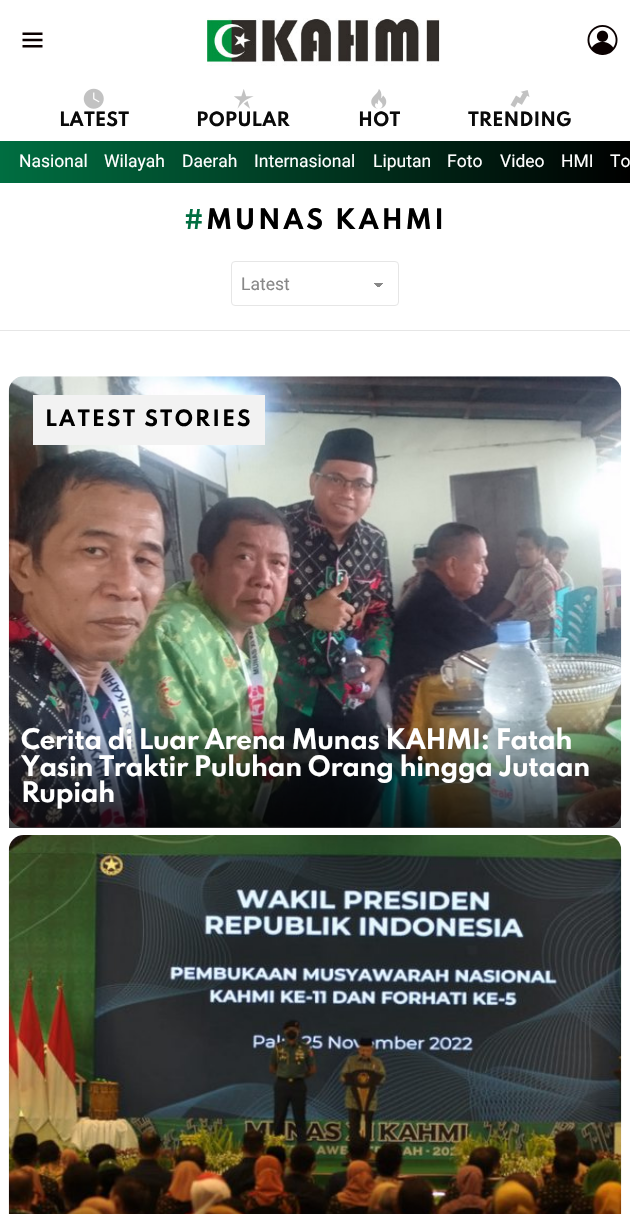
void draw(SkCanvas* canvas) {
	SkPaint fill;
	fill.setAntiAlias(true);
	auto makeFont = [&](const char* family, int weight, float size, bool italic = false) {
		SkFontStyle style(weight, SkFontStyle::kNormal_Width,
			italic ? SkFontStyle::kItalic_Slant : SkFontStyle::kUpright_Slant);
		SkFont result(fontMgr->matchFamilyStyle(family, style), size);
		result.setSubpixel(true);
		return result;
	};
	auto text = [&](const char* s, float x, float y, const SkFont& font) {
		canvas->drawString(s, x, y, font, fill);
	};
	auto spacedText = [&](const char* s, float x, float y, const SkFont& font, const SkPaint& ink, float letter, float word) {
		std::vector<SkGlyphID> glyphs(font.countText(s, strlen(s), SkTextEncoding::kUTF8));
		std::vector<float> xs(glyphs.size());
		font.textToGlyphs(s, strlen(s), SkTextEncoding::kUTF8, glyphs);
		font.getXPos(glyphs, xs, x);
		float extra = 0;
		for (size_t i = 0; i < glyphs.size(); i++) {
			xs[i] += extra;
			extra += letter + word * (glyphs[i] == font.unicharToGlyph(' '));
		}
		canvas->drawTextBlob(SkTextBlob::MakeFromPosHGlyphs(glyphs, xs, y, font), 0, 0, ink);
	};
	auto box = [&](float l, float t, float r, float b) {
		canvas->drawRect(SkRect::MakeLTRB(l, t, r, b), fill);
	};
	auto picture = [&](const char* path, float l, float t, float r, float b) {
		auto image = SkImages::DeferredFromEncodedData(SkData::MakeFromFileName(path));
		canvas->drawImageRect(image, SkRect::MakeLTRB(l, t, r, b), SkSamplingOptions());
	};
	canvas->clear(0xFFFFFFFF);
	picture("image0.png", 22, 32, 43, 48);
	picture("image1.png", 207, 18, 440, 66);
	picture("image2.png", 587, 25, 618, 55);
	picture("image3.png", 83, 88, 104, 109);
	picture("image4.png", 234, 89, 254, 109);
	picture("image5.png", 371, 89, 387, 109);
	picture("image6.png", 510, 90, 530, 108);
	{
		const SkColor colors[] = {0xFF006E41, 0xFF000000};
		const float stops[] = {0, 1};
		const SkPoint ends[] = {{0, 162}, {630, 162}};
		fill.setShader(SkGradientShader::MakeLinear(ends, colors, stops, 2, SkTileMode::kClamp));
		fill.setAlpha(255);
	}
	box(0, 141, 630, 183);
	{
		const SkColor colors[] = {0xFF888888, 0xFFFFFFFF};
		const float stops[] = {0.5f, 0.5f};
		const SkPoint ends[] = {{379, 282}, {385, 288}};
		fill.setShader(SkGradientShader::MakeLinear(ends, colors, stops, 2, SkTileMode::kClamp));
		fill.setAlpha(255);
	}
	box(379, 283, 385, 287);
	{
		const SkColor colors[] = {0xFFFFFFFF, 0xFF888888};
		const float stops[] = {0.5f, 0.5f};
		const SkPoint ends[] = {{373, 288}, {378, 282}};
		fill.setShader(SkGradientShader::MakeLinear(ends, colors, stops, 2, SkTileMode::kClamp));
		fill.setAlpha(255);
	}
	box(373, 283, 379, 287);
	fill.setStyle(SkPaint::kStroke_Style);
	fill.setStrokeWidth(1);
	fill.setShader(nullptr);
	fill.setColor(0xFFE6E6E6);
	canvas->drawRoundRect(SkRect::MakeLTRB(231.5f, 261.5f, 398.5f, 305.5f), 3.5f, 3.5f, fill);
	fill.setStyle(SkPaint::kFill_Style);
	box(0, 330, 630, 331);
	picture("image7.png", 8, 376, 622, 828);
	fill.setColor(0xFFF2F2F2);
	box(33, 395, 265, 445);
	{
		const SkColor colors[] = {0x00000000, 0xBF000000};
		const float stops[] = {0, 1};
		const SkPoint ends[] = {{315, 710}, {315, 828}};
		fill.setShader(SkGradientShader::MakeLinear(ends, colors, stops, 2, SkTileMode::kClamp));
		fill.setAlpha(255);
	}
	box(9, 713, 621, 828);
	picture("image8.png", 8, 835, 622, 1214);
	auto font1 = makeFont("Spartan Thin", 700, 17.5f);
	fill.setShader(nullptr);
	fill.setColor(0xFF0A0A0A);
	text("LATEST", 59, 126, font1);
	text("POPULAR", 196, 126, font1);
	text("HOT", 358, 126, font1);
	text("TRENDING", 468, 126, font1);
	auto font2 = makeFont("Roboto", 400, 17.5f);
	fill.setColor(0xFFFFFFFF);
	text("Nasional", 19, 167, font2);
	text("Wilayah", 104, 167, font2);
	text("Daerah", 182, 167, font2);
	text("Internasional", 254, 167, font2);
	text("Liputan", 373, 167, font2);
	text("Foto", 447, 167, font2);
	text("Video", 500, 167, font2);
	text("HMI", 561, 167, font2);
	text("To", 610, 167, font2);
	auto font3 = makeFont("Spartan Thin", 700, 25);
	fill.setColor(0xFF006E41);
	spacedText("#", 184, 229, font3, fill, 2.5f, 0);
	fill.setColor(0xFF000000);
	spacedText("MUNAS KAHMI", 206, 229, font3, fill, 2.5f, 0);
	fill.setColor(0xFF888888);
	text("Latest", 241, 290, font2);
	auto font4 = makeFont("Spartan Thin", 700, 20);
	fill.setColor(0xFF000000);
	spacedText("LATEST STORIES", 45, 426, font4, fill, 2, 0);
	fill.setColor(0xFFFFFFFF);
	spacedText("Cerita di Luar Arena Munas KAHMI: Fatah", 21, 749, font3, fill, -0.75f, 0);
	spacedText("Yasin Traktir Puluhan Orang hingga Jutaan", 21, 776, font3, fill, -0.75f, 0);
	spacedText("Rupiah", 21, 802, font3, fill, -0.75f, 0);
}
